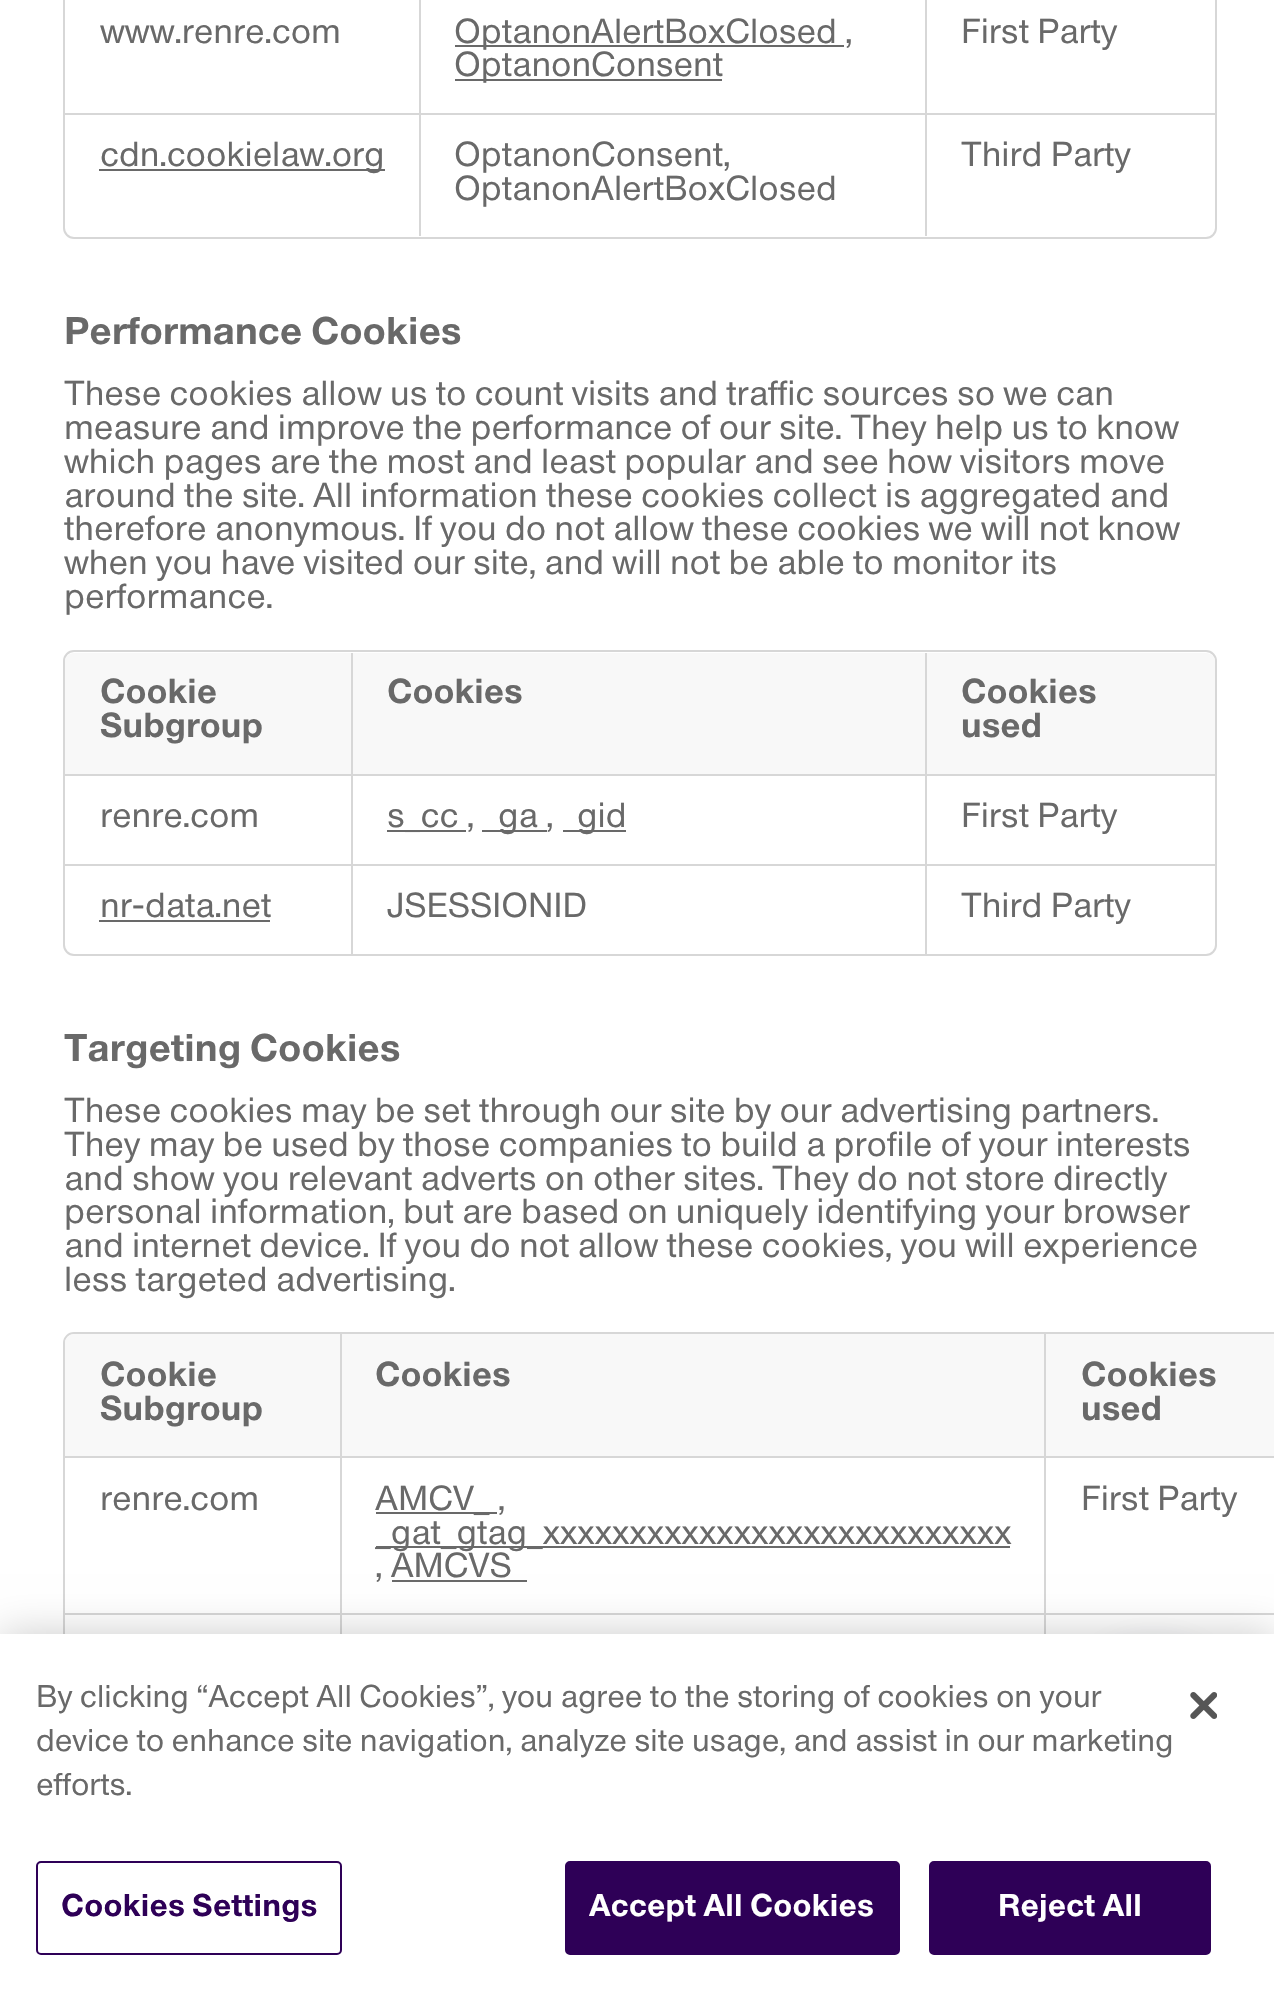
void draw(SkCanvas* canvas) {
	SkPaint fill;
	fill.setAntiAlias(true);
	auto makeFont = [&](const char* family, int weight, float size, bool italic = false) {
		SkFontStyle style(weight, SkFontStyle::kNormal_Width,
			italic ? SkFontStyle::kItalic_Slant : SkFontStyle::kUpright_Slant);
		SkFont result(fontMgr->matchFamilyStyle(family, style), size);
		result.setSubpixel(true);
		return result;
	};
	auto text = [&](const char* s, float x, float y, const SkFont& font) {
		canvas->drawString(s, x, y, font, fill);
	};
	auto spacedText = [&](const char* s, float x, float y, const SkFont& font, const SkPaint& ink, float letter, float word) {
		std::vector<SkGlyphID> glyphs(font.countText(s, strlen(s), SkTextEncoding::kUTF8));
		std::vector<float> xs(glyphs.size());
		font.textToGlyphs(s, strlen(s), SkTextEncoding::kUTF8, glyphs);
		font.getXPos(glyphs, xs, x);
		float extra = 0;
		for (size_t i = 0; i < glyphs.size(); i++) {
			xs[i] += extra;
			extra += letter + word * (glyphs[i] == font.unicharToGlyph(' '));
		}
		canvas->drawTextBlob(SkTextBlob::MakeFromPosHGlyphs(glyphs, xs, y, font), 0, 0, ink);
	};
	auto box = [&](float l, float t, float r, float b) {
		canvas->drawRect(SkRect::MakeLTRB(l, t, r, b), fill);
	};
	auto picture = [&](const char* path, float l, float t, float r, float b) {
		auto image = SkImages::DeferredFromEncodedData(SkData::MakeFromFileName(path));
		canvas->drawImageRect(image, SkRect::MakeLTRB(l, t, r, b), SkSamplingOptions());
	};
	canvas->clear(0xFFFFFFFF);
	fill.setStyle(SkPaint::kStroke_Style);
	fill.setStrokeWidth(2);
	fill.setColor(0xFFD7D7D7);
	canvas->drawRoundRect(SkRect::MakeLTRB(64, -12, 1216, 238), 10, 10, fill);
	fill.setStyle(SkPaint::kFill_Style);
	box(419, 0, 421, 236);
	box(65, 113, 421, 115);
	box(925, 0, 927, 236);
	box(421, 113, 1215, 115);
	fill.setColor(0xFF696969);
	box(455, 45, 844, 47);
	box(455, 79, 722, 81);
	box(99, 169, 385, 171);
	fill.setStyle(SkPaint::kStroke_Style);
	fill.setColor(0xFFD7D7D7);
	canvas->drawRoundRect(SkRect::MakeLTRB(64, 651, 1216, 955), 10, 10, fill);
	fill.setStyle(SkPaint::kFill_Style);
	fill.setColor(0xFFF8F8F8);
	canvas->drawPath(SkPathBuilder().moveTo(74, 653).lineTo(351, 653).lineTo(351, 774).lineTo(65, 774).lineTo(65, 662).cubicTo(65, 657, 69, 653, 74, 653).close().detach(), fill);
	fill.setColor(0xFFD7D7D7);
	box(351, 653, 353, 954);
	box(65, 774, 353, 776);
	fill.setColor(0xFFF8F8F8);
	box(353, 653, 925, 774);
	fill.setColor(0xFFD7D7D7);
	box(925, 653, 927, 954);
	box(353, 774, 927, 776);
	fill.setColor(0xFFF8F8F8);
	canvas->drawPath(SkPathBuilder().moveTo(927, 653).lineTo(1206, 653).cubicTo(1211, 653, 1215, 657, 1215, 662).lineTo(1215, 776).lineTo(927, 776).close().detach(), fill);
	fill.setColor(0xFFD7D7D7);
	box(927, 774, 1215, 776);
	box(65, 864, 1215, 866);
	fill.setColor(0xFF696969);
	box(387, 830, 466, 832);
	box(482, 830, 547, 832);
	box(563, 830, 626, 832);
	box(99, 920, 270, 922);
	fill.setStyle(SkPaint::kStroke_Style);
	fill.setColor(0xFFD7D7D7);
	canvas->drawRoundRect(SkRect::MakeLTRB(64, 1333, 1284, 1862), 10, 10, fill);
	fill.setStyle(SkPaint::kFill_Style);
	fill.setColor(0xFFF8F8F8);
	canvas->drawPath(SkPathBuilder().moveTo(74, 1334).lineTo(340, 1334).lineTo(340, 1456).lineTo(65, 1456).lineTo(65, 1343).cubicTo(65, 1338, 69, 1334, 74, 1334).close().detach(), fill);
	fill.setColor(0xFFD7D7D7);
	box(340, 1334, 342, 1634);
	box(65, 1456, 342, 1458);
	fill.setColor(0xFFF8F8F8);
	box(342, 1334, 1044, 1456);
	fill.setColor(0xFFD7D7D7);
	box(1044, 1334, 1046, 1634);
	box(342, 1456, 1274, 1458);
	fill.setColor(0xFFF8F8F8);
	box(1046, 1334, 1274, 1456);
	fill.setColor(0xFFD7D7D7);
	box(65, 1613, 1274, 1615);
	fill.setColor(0xFF696969);
	box(376, 1512, 497, 1514);
	box(376, 1546, 1010, 1548);
	box(392, 1580, 527, 1582);
	fill.setColor(0x3309325C);
	fill.setMaskFilter(SkMaskFilter::MakeBlur(kNormal_SkBlurStyle, 22.5f));
	canvas->drawRoundRect(SkRect::MakeLTRB(1085, 1656, 1222, 1793), 68.5f, 68.5f, fill);
	fill.setMaskFilter(nullptr);
	fill.setColor(0x33000000);
	fill.setMaskFilter(SkMaskFilter::MakeBlur(kNormal_SkBlurStyle, 20));
	canvas->drawRect(SkRect::MakeLTRB(0, 1634, 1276, 2000), fill);
	fill.setMaskFilter(nullptr);
	fill.setColor(0xFFFFFFFF);
	box(0, 1634, 1274, 2000);
	fill.setStyle(SkPaint::kStroke_Style);
	fill.setColor(0xFF2E0057);
	canvas->drawRoundRect(SkRect::MakeLTRB(37, 1862, 341, 1954), 4, 4, fill);
	fill.setStyle(SkPaint::kFill_Style);
	canvas->drawRoundRect(SkRect::MakeLTRB(566, 1862, 899, 1954), 4, 4, fill);
	fill.setStyle(SkPaint::kStroke_Style);
	canvas->drawRoundRect(SkRect::MakeLTRB(566, 1862, 899, 1954), 4, 4, fill);
	fill.setStyle(SkPaint::kFill_Style);
	canvas->drawRoundRect(SkRect::MakeLTRB(930, 1862, 1210, 1954), 4, 4, fill);
	fill.setStyle(SkPaint::kStroke_Style);
	canvas->drawRoundRect(SkRect::MakeLTRB(930, 1862, 1210, 1954), 4, 4, fill);
	picture("image0.png", 1190, 1692, 1217, 1719);
	auto font1 = makeFont("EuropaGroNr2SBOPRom", 400, 32.4f);
	fill.setStyle(SkPaint::kFill_Style);
	fill.setColor(0xFF696969);
	text("www.renre.com", 100, 43, font1);
	text("OptanonAlertBoxClosed ,", 454, 43, font1);
	text("OptanonConsent", 454, 76, font1);
	text("First Party", 961, 43, font1);
	text("cdn.cookielaw.org", 100, 166, font1);
	text("OptanonConsent,", 454, 166, font1);
	text("OptanonAlertBoxClosed", 454, 200, font1);
	text("Third Party", 961, 166, font1);
	auto font2 = makeFont("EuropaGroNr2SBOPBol", 400, 36);
	text("Performance Cookies", 64, 344, font2);
	text("These cookies allow us to count visits and traffic sources so we can", 64, 405, font1);
	text("measure and improve the performance of our site. They help us to know", 64, 439, font1);
	text("which pages are the most and least popular and see how visitors move", 64, 473, font1);
	text("around the site. All information these cookies collect is aggregated and", 64, 507, font1);
	text("therefore anonymous. If you do not allow these cookies we will not know", 64, 540, font1);
	text("when you have visited our site, and will not be able to monitor its", 64, 574, font1);
	text("performance.", 64, 608, font1);
	auto font3 = makeFont("EuropaGroNr2SBOPBol", 400, 32.4f);
	text("Cookie", 100, 703, font3);
	text("Subgroup", 100, 737, font3);
	text("Cookies", 387, 703, font3);
	text("Cookies", 961, 703, font3);
	text("used", 961, 737, font3);
	text("renre.com", 100, 827, font1);
	text("s_cc ,", 387, 827, font1);
	text("ga ,", 498, 827, font1);
	text("gid", 577, 827, font1);
	text("First Party", 961, 827, font1);
	text("nr-data.net", 100, 917, font1);
	text("JSESSIONID", 387, 917, font1);
	text("Third Party", 961, 917, font1);
	text("Targeting Cookies", 64, 1061, font2);
	text("These cookies may be set through our site by our advertising partners.", 64, 1122, font1);
	text("They may be used by those companies to build a profile of your interests", 64, 1156, font1);
	text("and show you relevant adverts on other sites. They do not store directly", 64, 1190, font1);
	text("personal information, but are based on uniquely identifying your browser", 64, 1223, font1);
	text("and internet device. If you do not allow these cookies, you will experience", 64, 1257, font1);
	text("less targeted advertising.", 64, 1291, font1);
	text("Cookie", 100, 1386, font3);
	text("Subgroup", 100, 1420, font3);
	text("Cookies", 375, 1386, font3);
	text("Cookies", 1081, 1386, font3);
	text("used", 1081, 1420, font3);
	text("renre.com", 100, 1510, font1);
	text("AMCV_ ,", 375, 1510, font1);
	text("_gat_gtag_xxxxxxxxxxxxxxxxxxxxxxxxxxx", 375, 1544, font1);
	text(", AMCVS", 375, 1577, font1);
	text("First Party", 1081, 1510, font1);
	auto font4 = makeFont("EuropaGroNr2SBOPRom", 400, 29.25f);
	text("By clicking “Accept All Cookies”, you agree to the storing of cookies on your", 36, 1707, font4);
	text("device to enhance site navigation, analyze site usage, and assist in our marketing", 36, 1751, font4);
	text("efforts.", 36, 1795, font4);
	auto font5 = makeFont("EuropaGroNr2SBOPBol", 400, 29.25f);
	fill.setColor(0xFF2E0057);
	spacedText("Cookies Settings", 61, 1916, font5, fill, 0.25f, 0);
	fill.setColor(0xFFFFFFFF);
	spacedText("Accept All Cookies", 589, 1916, font5, fill, 0.25f, 0);
	spacedText("Reject All", 998, 1916, font5, fill, 0.25f, 0);
}
